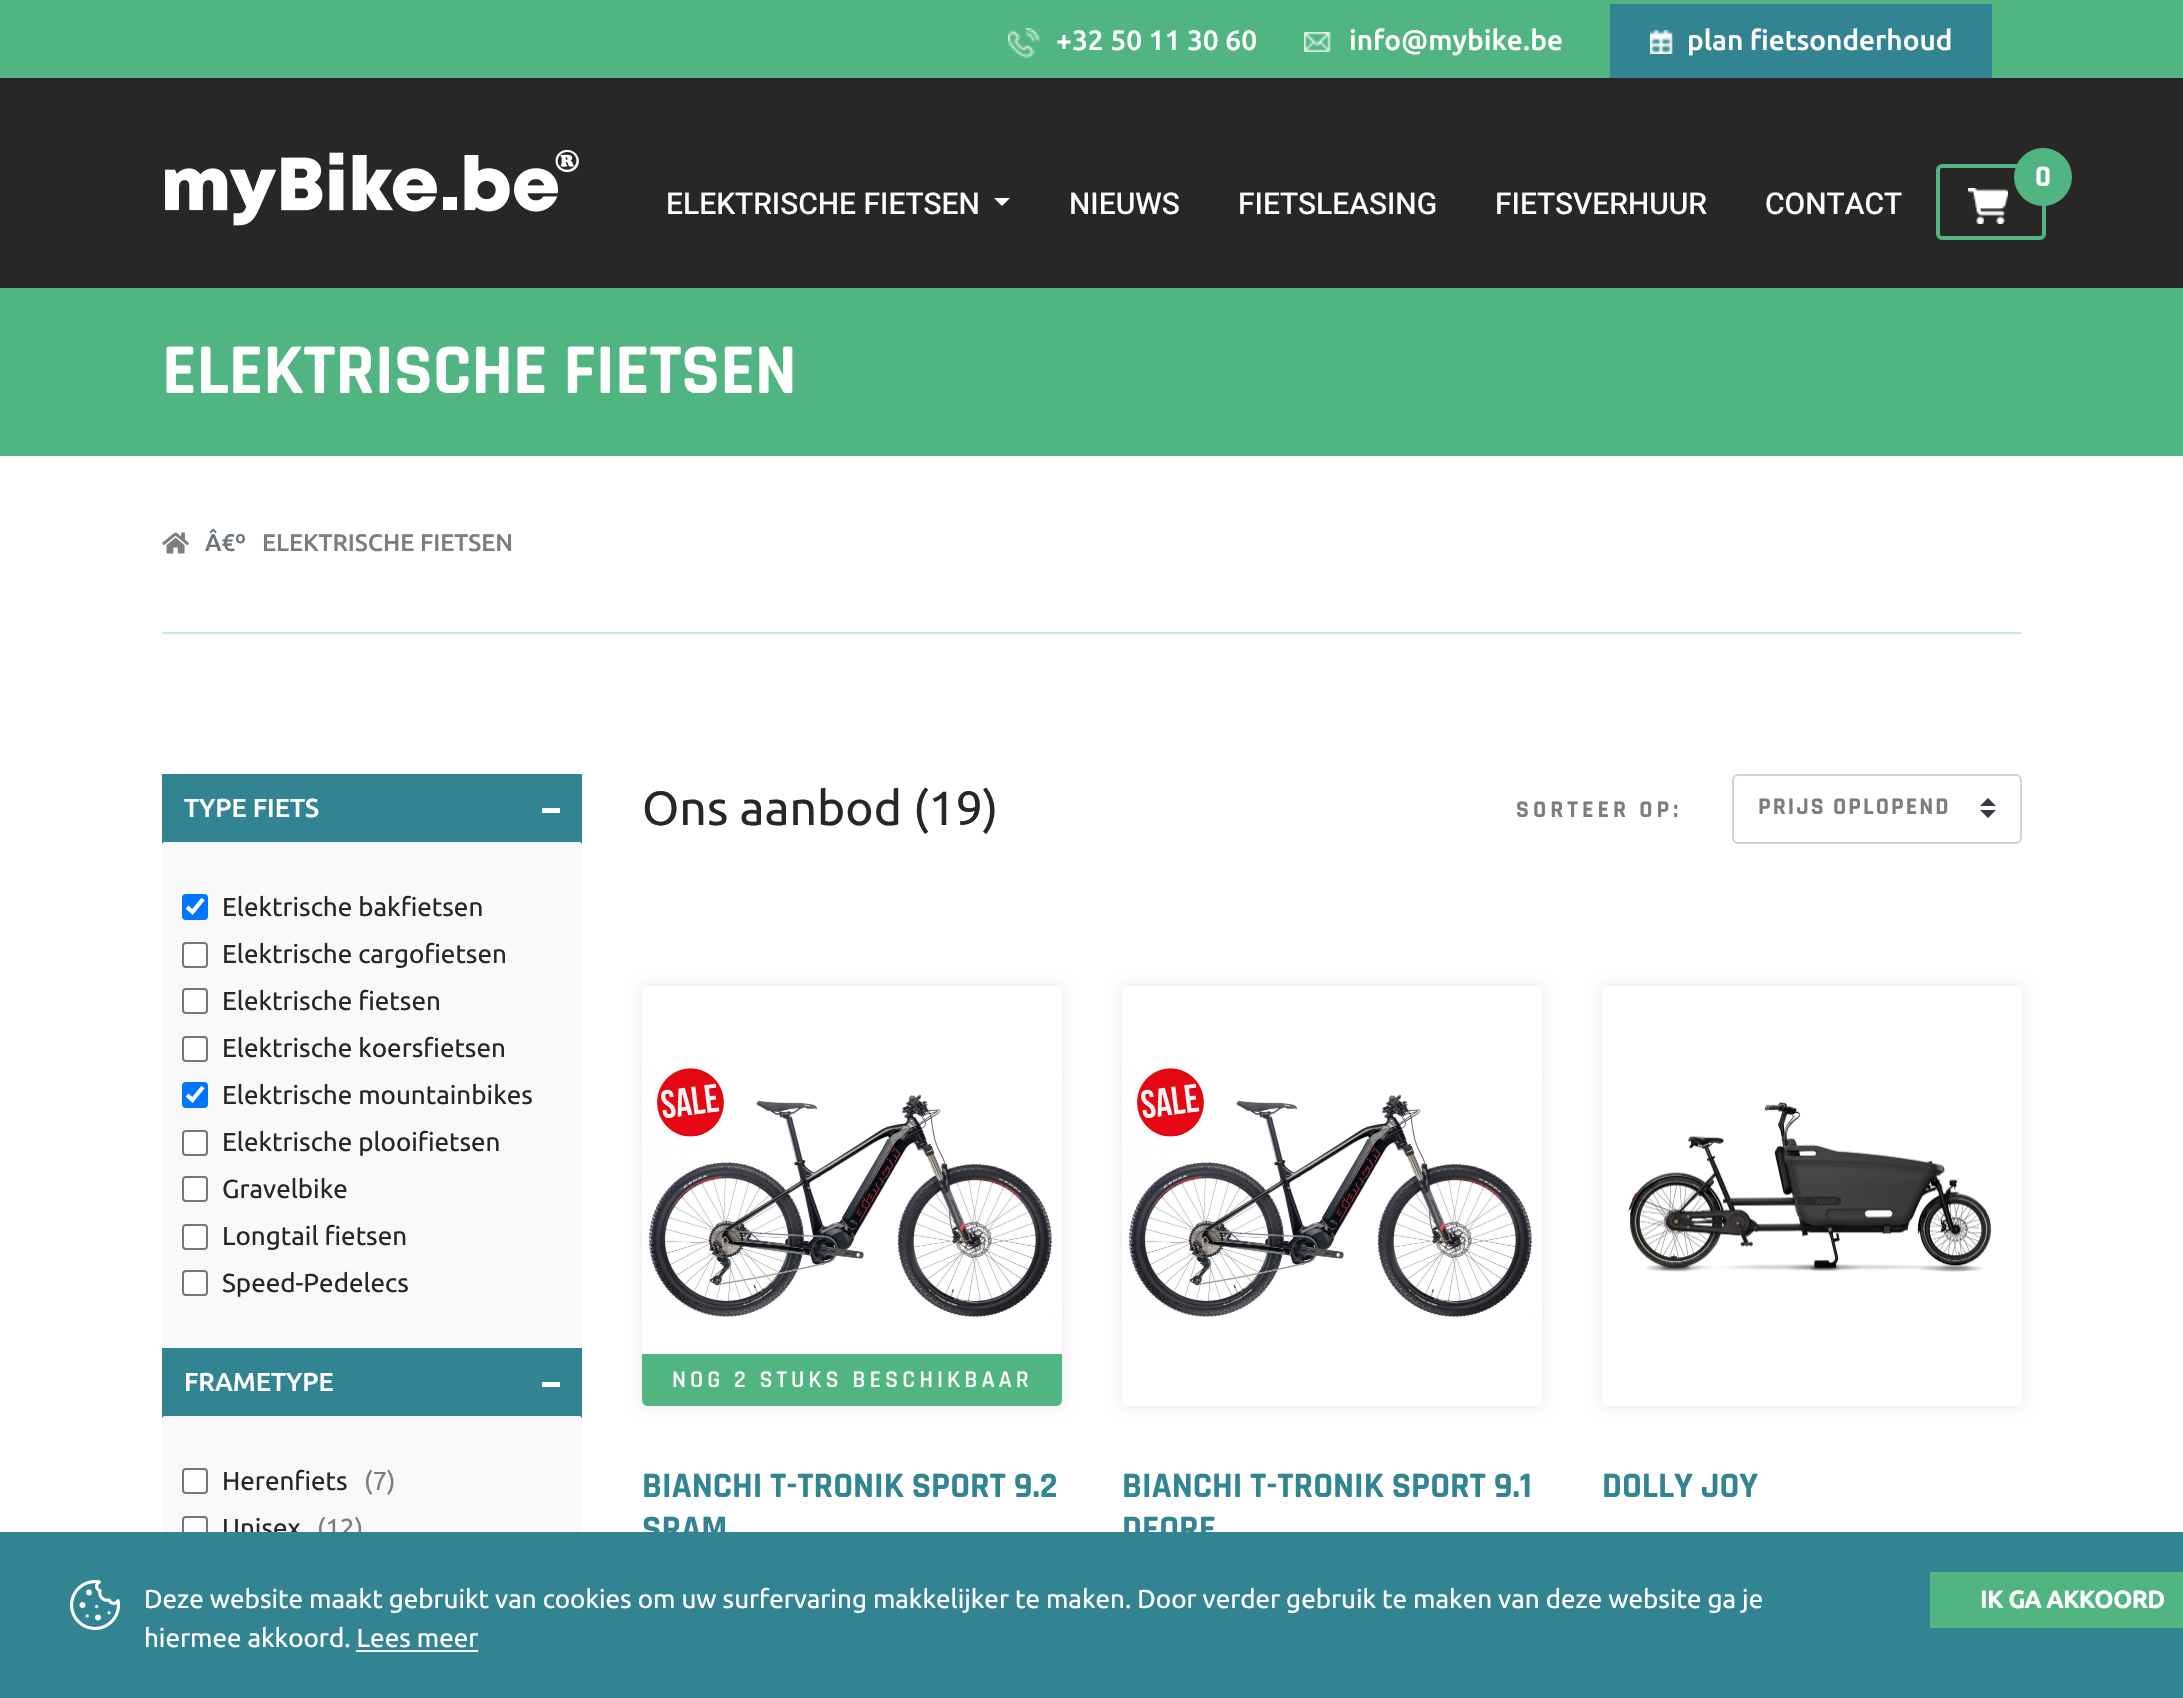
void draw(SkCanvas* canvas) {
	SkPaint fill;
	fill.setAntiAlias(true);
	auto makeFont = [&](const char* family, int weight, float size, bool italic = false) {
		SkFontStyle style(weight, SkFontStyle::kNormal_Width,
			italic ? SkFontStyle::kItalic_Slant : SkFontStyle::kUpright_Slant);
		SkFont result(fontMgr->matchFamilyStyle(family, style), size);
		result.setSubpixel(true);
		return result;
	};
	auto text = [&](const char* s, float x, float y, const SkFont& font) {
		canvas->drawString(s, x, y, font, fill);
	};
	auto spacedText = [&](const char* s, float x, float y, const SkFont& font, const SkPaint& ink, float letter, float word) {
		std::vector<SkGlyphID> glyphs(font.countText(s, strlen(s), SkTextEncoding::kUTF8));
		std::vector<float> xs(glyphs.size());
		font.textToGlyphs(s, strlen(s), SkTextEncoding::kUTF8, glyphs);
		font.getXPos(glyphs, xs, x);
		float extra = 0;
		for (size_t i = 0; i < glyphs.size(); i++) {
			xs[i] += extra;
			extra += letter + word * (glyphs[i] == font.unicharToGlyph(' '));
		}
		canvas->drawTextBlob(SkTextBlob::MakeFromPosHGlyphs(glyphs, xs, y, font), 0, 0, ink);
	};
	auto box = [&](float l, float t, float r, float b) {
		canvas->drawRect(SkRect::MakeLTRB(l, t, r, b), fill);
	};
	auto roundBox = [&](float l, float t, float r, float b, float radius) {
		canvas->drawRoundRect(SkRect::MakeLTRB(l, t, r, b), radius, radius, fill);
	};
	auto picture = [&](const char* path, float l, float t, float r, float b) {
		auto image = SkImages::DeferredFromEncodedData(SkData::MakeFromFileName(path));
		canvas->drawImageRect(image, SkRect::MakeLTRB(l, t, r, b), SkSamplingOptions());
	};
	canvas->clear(0xFFFFFFFF);
	fill.setColor(0xFF51B581);
	box(0, 0, 2183, 78);
	picture("image0.png", 1008, 28, 1040, 58);
	picture("image1.png", 1304, 32, 1331, 52);
	fill.setColor(0xFF328492);
	box(1610, 4, 1992, 78);
	picture("image2.png", 1650, 30, 1673, 54);
	fill.setColor(0xFF282726);
	box(0, 78, 2183, 288);
	picture("image3.png", 165, 149, 579, 226);
	fill.setStyle(SkPaint::kStroke_Style);
	fill.setStrokeWidth(4);
	fill.setColor(0xFF51B581);
	canvas->drawRoundRect(SkRect::MakeLTRB(1938, 166, 2044, 238), 4, 4, fill);
	fill.setStyle(SkPaint::kFill_Style);
	canvas->drawCircle(2043, 177, 29, fill);
	picture("image4.png", 1968, 188, 2008, 224);
	fill.setColor(0xFFFFFFFF);
	canvas->drawPath(SkPathBuilder().moveTo(994, 198).lineTo(1010, 198).lineTo(1002, 206).close().detach(), fill);
	fill.setColor(0xFF51B581);
	box(0, 288, 2183, 456);
	fill.setColor(0xFFCBE9D9);
	box(162, 632, 2022, 634);
	picture("image5.png", 162, 532, 189, 554);
	fill.setColor(0xFF328492);
	box(162, 774, 582, 844);
	fill.setColor(0xFFF9F9F9);
	canvas->drawPath(SkPathBuilder().moveTo(582, 844).lineTo(162, 844).lineTo(164, 842).lineTo(580, 842).close().detach(), fill);
	fill.setColor(0xFFFFFFFF);
	box(542, 808, 560, 813);
	fill.setColor(0xFFF9F9F9);
	box(162, 844, 582, 1348);
	fill.setColor(0xFF0075FF);
	roundBox(182, 894, 208, 920, 4);
	fill.setStyle(SkPaint::kStroke_Style);
	fill.setStrokeWidth(4.2f);
	fill.setColor(0xFFFFFFFF);
	canvas->drawPath(SkPathBuilder().moveTo(187, 907).lineTo(192.5f, 912).lineTo(203, 899).detach(), fill);
	fill.setStyle(SkPaint::kFill_Style);
	canvas->drawRoundRect(SkRect::MakeLTRB(183, 943, 207, 967), 3, 3, fill);
	fill.setStyle(SkPaint::kStroke_Style);
	fill.setStrokeWidth(2);
	fill.setColor(0xFF767676);
	canvas->drawRoundRect(SkRect::MakeLTRB(183, 943, 207, 967), 3, 3, fill);
	fill.setStyle(SkPaint::kFill_Style);
	fill.setColor(0xFFFFFFFF);
	canvas->drawRoundRect(SkRect::MakeLTRB(183, 989, 207, 1013), 3, 3, fill);
	fill.setStyle(SkPaint::kStroke_Style);
	fill.setColor(0xFF767676);
	canvas->drawRoundRect(SkRect::MakeLTRB(183, 989, 207, 1013), 3, 3, fill);
	fill.setStyle(SkPaint::kFill_Style);
	fill.setColor(0xFFFFFFFF);
	canvas->drawRoundRect(SkRect::MakeLTRB(183, 1037, 207, 1061), 3, 3, fill);
	fill.setStyle(SkPaint::kStroke_Style);
	fill.setColor(0xFF767676);
	canvas->drawRoundRect(SkRect::MakeLTRB(183, 1037, 207, 1061), 3, 3, fill);
	fill.setStyle(SkPaint::kFill_Style);
	fill.setColor(0xFF0075FF);
	roundBox(182, 1082, 208, 1108, 4);
	fill.setStyle(SkPaint::kStroke_Style);
	fill.setStrokeWidth(4.2f);
	fill.setColor(0xFFFFFFFF);
	canvas->drawPath(SkPathBuilder().moveTo(187, 1095).lineTo(192.5f, 1100).lineTo(203, 1087).detach(), fill);
	fill.setStyle(SkPaint::kFill_Style);
	canvas->drawRoundRect(SkRect::MakeLTRB(183, 1131, 207, 1155), 3, 3, fill);
	fill.setStyle(SkPaint::kStroke_Style);
	fill.setStrokeWidth(2);
	fill.setColor(0xFF767676);
	canvas->drawRoundRect(SkRect::MakeLTRB(183, 1131, 207, 1155), 3, 3, fill);
	fill.setStyle(SkPaint::kFill_Style);
	fill.setColor(0xFFFFFFFF);
	canvas->drawRoundRect(SkRect::MakeLTRB(183, 1177, 207, 1201), 3, 3, fill);
	fill.setStyle(SkPaint::kStroke_Style);
	fill.setColor(0xFF767676);
	canvas->drawRoundRect(SkRect::MakeLTRB(183, 1177, 207, 1201), 3, 3, fill);
	fill.setStyle(SkPaint::kFill_Style);
	fill.setColor(0xFFFFFFFF);
	canvas->drawRoundRect(SkRect::MakeLTRB(183, 1225, 207, 1249), 3, 3, fill);
	fill.setStyle(SkPaint::kStroke_Style);
	fill.setColor(0xFF767676);
	canvas->drawRoundRect(SkRect::MakeLTRB(183, 1225, 207, 1249), 3, 3, fill);
	fill.setStyle(SkPaint::kFill_Style);
	fill.setColor(0xFFFFFFFF);
	canvas->drawRoundRect(SkRect::MakeLTRB(183, 1271, 207, 1295), 3, 3, fill);
	fill.setStyle(SkPaint::kStroke_Style);
	fill.setColor(0xFF767676);
	canvas->drawRoundRect(SkRect::MakeLTRB(183, 1271, 207, 1295), 3, 3, fill);
	fill.setStyle(SkPaint::kFill_Style);
	fill.setColor(0xFF328492);
	box(162, 1348, 582, 1418);
	fill.setColor(0xFFF9F9F9);
	canvas->drawPath(SkPathBuilder().moveTo(582, 1418).lineTo(162, 1418).lineTo(164, 1416).lineTo(580, 1416).close().detach(), fill);
	fill.setColor(0xFFFFFFFF);
	box(542, 1382, 560, 1387);
	fill.setColor(0xFFF9F9F9);
	box(162, 1418, 582, 1532);
	fill.setColor(0xFFFFFFFF);
	canvas->drawRoundRect(SkRect::MakeLTRB(183, 1469, 207, 1493), 3, 3, fill);
	fill.setStyle(SkPaint::kStroke_Style);
	fill.setColor(0xFF767676);
	canvas->drawRoundRect(SkRect::MakeLTRB(183, 1469, 207, 1493), 3, 3, fill);
	fill.setStyle(SkPaint::kFill_Style);
	fill.setColor(0xFFFFFFFF);
	canvas->drawRoundRect(SkRect::MakeLTRB(183, 1517, 207, 1541), 3, 3, fill);
	fill.setStyle(SkPaint::kStroke_Style);
	fill.setColor(0xFF767676);
	canvas->drawRoundRect(SkRect::MakeLTRB(183, 1517, 207, 1541), 3, 3, fill);
	fill.setStyle(SkPaint::kFill_Style);
	fill.setColor(0xFF343A40);
	canvas->drawPath(SkPathBuilder().moveTo(1988, 798).lineTo(1980, 806).lineTo(1996, 806).close().moveTo(1988, 818).lineTo(1980, 810).lineTo(1996, 810).close().detach(), fill);
	fill.setStyle(SkPaint::kStroke_Style);
	fill.setColor(0xFFCED4DA);
	canvas->drawRoundRect(SkRect::MakeLTRB(1733, 775, 2021, 843), 5, 5, fill);
	fill.setStyle(SkPaint::kFill_Style);
	fill.setColor(0x1A000000);
	fill.setMaskFilter(SkMaskFilter::MakeBlur(kNormal_SkBlurStyle, 8));
	canvas->drawRoundRect(SkRect::MakeLTRB(642, 986, 1062, 1406), 6, 6, fill);
	fill.setMaskFilter(nullptr);
	fill.setColor(0xFFFFFFFF);
	roundBox(642, 986, 1062, 1406, 6);
	picture("image6.png", 644, 1066, 1060, 1319);
	fill.setColor(0xFF51B581);
	canvas->drawPath(SkPathBuilder().moveTo(642, 1354).lineTo(1062, 1354).lineTo(1062, 1400).cubicTo(1062, 1403.5f, 1059.5f, 1406, 1056, 1406).lineTo(648, 1406).cubicTo(644.5f, 1406, 642, 1403.5f, 642, 1400).close().detach(), fill);
	fill.setColor(0x1A000000);
	fill.setMaskFilter(SkMaskFilter::MakeBlur(kNormal_SkBlurStyle, 8));
	canvas->drawRoundRect(SkRect::MakeLTRB(1122, 986, 1542, 1406), 6, 6, fill);
	fill.setMaskFilter(nullptr);
	fill.setColor(0xFFFFFFFF);
	roundBox(1122, 986, 1542, 1406, 6);
	picture("image6.png", 1124, 1066, 1540, 1319);
	fill.setColor(0x1A000000);
	fill.setMaskFilter(SkMaskFilter::MakeBlur(kNormal_SkBlurStyle, 8));
	canvas->drawRoundRect(SkRect::MakeLTRB(1602, 986, 2022, 1406), 6, 6, fill);
	fill.setMaskFilter(nullptr);
	fill.setColor(0xFFFFFFFF);
	roundBox(1602, 986, 2022, 1406, 6);
	picture("image7.png", 1628, 1101, 1992, 1272);
	auto font1 = makeFont("Ubuntu", 500, 28);
	text("+32 50 11 30 60", 1056, 50, font1);
	text("info@mybike.be", 1349, 50, font1);
	text("plan fietsonderhoud", 1687, 50, font1);
	auto font2 = makeFont("Rajdhani", 700, 30);
	text("0", 2035, 186, font2);
	auto font3 = makeFont("Heebo", 500, 30);
	text("ELEKTRISCHE FIETSEN", 666, 214, font3);
	text("NIEUWS", 1069, 214, font3);
	text("FIETSLEASING", 1238, 214, font3);
	text("FIETSVERHUUR", 1495, 214, font3);
	text("CONTACT", 1765, 214, font3);
	auto font4 = makeFont("Rajdhani", 700, 72);
	text("ELEKTRISCHE FIETSEN", 162, 393, font4);
	auto font5 = makeFont("Ubuntu", 500, 24);
	fill.setColor(0xFF6C757D);
	text("Â€º", 205, 551, font5);
	fill.setColor(0xFF7E7D7D);
	text("ELEKTRISCHE FIETSEN", 262, 551, font5);
	auto font6 = makeFont("Ubuntu", 500, 26);
	fill.setColor(0xFFFFFFFF);
	text("TYPE FIETS", 184, 817, font6);
	auto font7 = makeFont("Ubuntu", 400, 26);
	fill.setColor(0xFF282726);
	text("Elektrische bakfietsen", 222, 916, font7);
	text("Elektrische cargofietsen", 222, 963, font7);
	text("Elektrische fietsen", 222, 1010, font7);
	text("Elektrische koersfietsen", 222, 1057, font7);
	text("Elektrische mountainbikes", 222, 1104, font7);
	text("Elektrische plooifietsen", 222, 1151, font7);
	text("Gravelbike", 222, 1198, font7);
	text("Longtail fietsen", 222, 1245, font7);
	text("Speed-Pedelecs", 222, 1292, font7);
	fill.setColor(0xFFFFFFFF);
	text("FRAMETYPE", 184, 1391, font6);
	fill.setColor(0xFF282726);
	text("Herenfiets", 222, 1490, font7);
	fill.setColor(0xFF7E7D7D);
	text("(7)", 364, 1490, font7);
	fill.setColor(0xFF282726);
	text("Unisex", 222, 1537, font7);
	fill.setColor(0xFF7E7D7D);
	text("(12)", 317, 1537, font7);
	auto font8 = makeFont("Ubuntu", 400, 48);
	fill.setColor(0xFF282726);
	text("Ons aanbod (19)", 642, 825, font8);
	auto font9 = makeFont("Rajdhani", 700, 24);
	fill.setColor(0xFF7E7D7D);
	spacedText("SORTEER OP:", 1516, 817, font9, fill, 4, 0);
	spacedText("PRIJS OPLOPEND", 1758, 814, font9, fill, 2, 0);
	auto font10 = makeFont("Rajdhani", 600, 24);
	fill.setColor(0xFFFFFFFF);
	spacedText("NOG 2 STUKS BESCHIKBAAR", 672, 1387, font10, fill, 4, 0);
	auto font11 = makeFont("Rajdhani", 700, 36);
	fill.setColor(0xFF328492);
	text("BIANCHI T-TRONIK SPORT 9.2", 642, 1497, font11);
	text("SRAM", 642, 1540, font11);
	text("BIANCHI T-TRONIK SPORT 9.1", 1122, 1497, font11);
	text("DEORE", 1122, 1540, font11);
	text("DOLLY JOY", 1602, 1497, font11);
	box(0, 1532, 2183, 1698);
	picture("image8.png", 70, 1580, 120, 1630);
	fill.setColor(0xFFFFFFFF);
	text("Deze website maakt gebruikt van cookies om uw surfervaring makkelijker te maken. Door verder gebruik te maken van deze website ga je", 144, 1608, font7);
	text("hiermee akkoord. Lees meer", 144, 1647, font7);
	box(356, 1650, 478, 1652);
	fill.setColor(0xFF51B581);
	box(1930, 1572, 2183, 1628);
	auto font12 = makeFont("Ubuntu", 700, 24);
	fill.setColor(0xFFFFFFFF);
	text("IK GA AKKOORD", 1980, 1608, font12);
}
